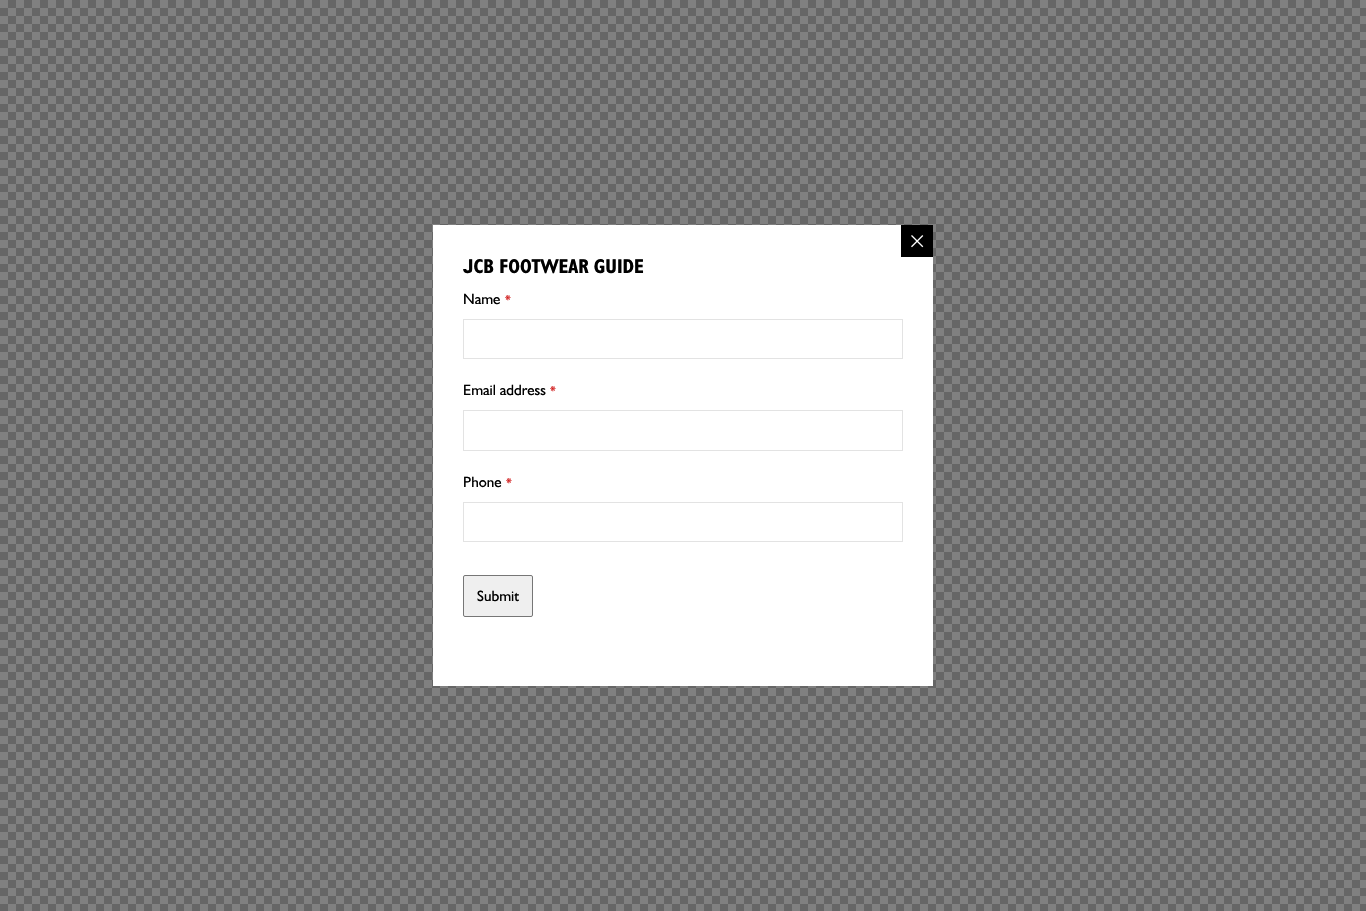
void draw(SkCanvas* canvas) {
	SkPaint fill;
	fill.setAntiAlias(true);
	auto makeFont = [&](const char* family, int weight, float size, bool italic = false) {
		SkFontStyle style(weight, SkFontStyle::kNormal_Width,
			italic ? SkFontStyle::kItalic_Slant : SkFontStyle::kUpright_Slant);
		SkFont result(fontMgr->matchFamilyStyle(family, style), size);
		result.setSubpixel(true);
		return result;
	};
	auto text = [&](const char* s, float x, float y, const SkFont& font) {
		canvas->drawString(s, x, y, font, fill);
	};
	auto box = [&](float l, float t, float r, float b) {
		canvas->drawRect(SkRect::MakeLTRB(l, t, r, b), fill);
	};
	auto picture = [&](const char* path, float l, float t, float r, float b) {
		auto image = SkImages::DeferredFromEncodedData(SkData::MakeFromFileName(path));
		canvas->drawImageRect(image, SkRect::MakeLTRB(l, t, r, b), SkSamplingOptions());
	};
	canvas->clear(0xFFFFFFFF);
	picture("image0.png", 0, 0, 1366, 911);
	fill.setColor(0xFFFFFFFF);
	box(433, 225, 933, 686);
	fill.setColor(0xFF000000);
	box(901, 225, 933, 257);
	picture("image1.png", 911, 235, 924, 248);
	fill.setStyle(SkPaint::kStroke_Style);
	fill.setStrokeWidth(1);
	fill.setColor(0xFFE3E3E3);
	canvas->drawRect(SkRect::MakeLTRB(463.5f, 319.5f, 902.5f, 358.5f), fill);
	canvas->drawRect(SkRect::MakeLTRB(463.5f, 410.5f, 902.5f, 450.5f), fill);
	canvas->drawRect(SkRect::MakeLTRB(463.5f, 502.5f, 902.5f, 541.5f), fill);
	fill.setStyle(SkPaint::kFill_Style);
	fill.setColor(0xFFEFEFEF);
	canvas->drawRoundRect(SkRect::MakeLTRB(463.5f, 575.5f, 532.5f, 616.5f), 1.5f, 1.5f, fill);
	fill.setStyle(SkPaint::kStroke_Style);
	fill.setColor(0xFF767676);
	canvas->drawRoundRect(SkRect::MakeLTRB(463.5f, 575.5f, 532.5f, 616.5f), 1.5f, 1.5f, fill);
	auto font1 = makeFont("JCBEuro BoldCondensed", 700, 20);
	fill.setStyle(SkPaint::kFill_Style);
	fill.setColor(0xFF000000);
	text("JCB FOOTWEAR GUIDE", 463, 273, font1);
	auto font2 = makeFont("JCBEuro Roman", 400, 15);
	text("Name", 463, 304, font2);
	auto font3 = makeFont("JCBEuro Roman", 400, 13);
	fill.setColor(0xFFCC0101);
	text("*", 505, 304, font3);
	fill.setColor(0xFF000000);
	text("Email address", 463, 395, font2);
	fill.setColor(0xFFCC0101);
	text("*", 550, 395, font3);
	fill.setColor(0xFF000000);
	text("Phone", 463, 487, font2);
	fill.setColor(0xFFCC0101);
	text("*", 506, 487, font3);
	fill.setColor(0xFF000000);
	text("Submit", 477, 601, font2);
}
